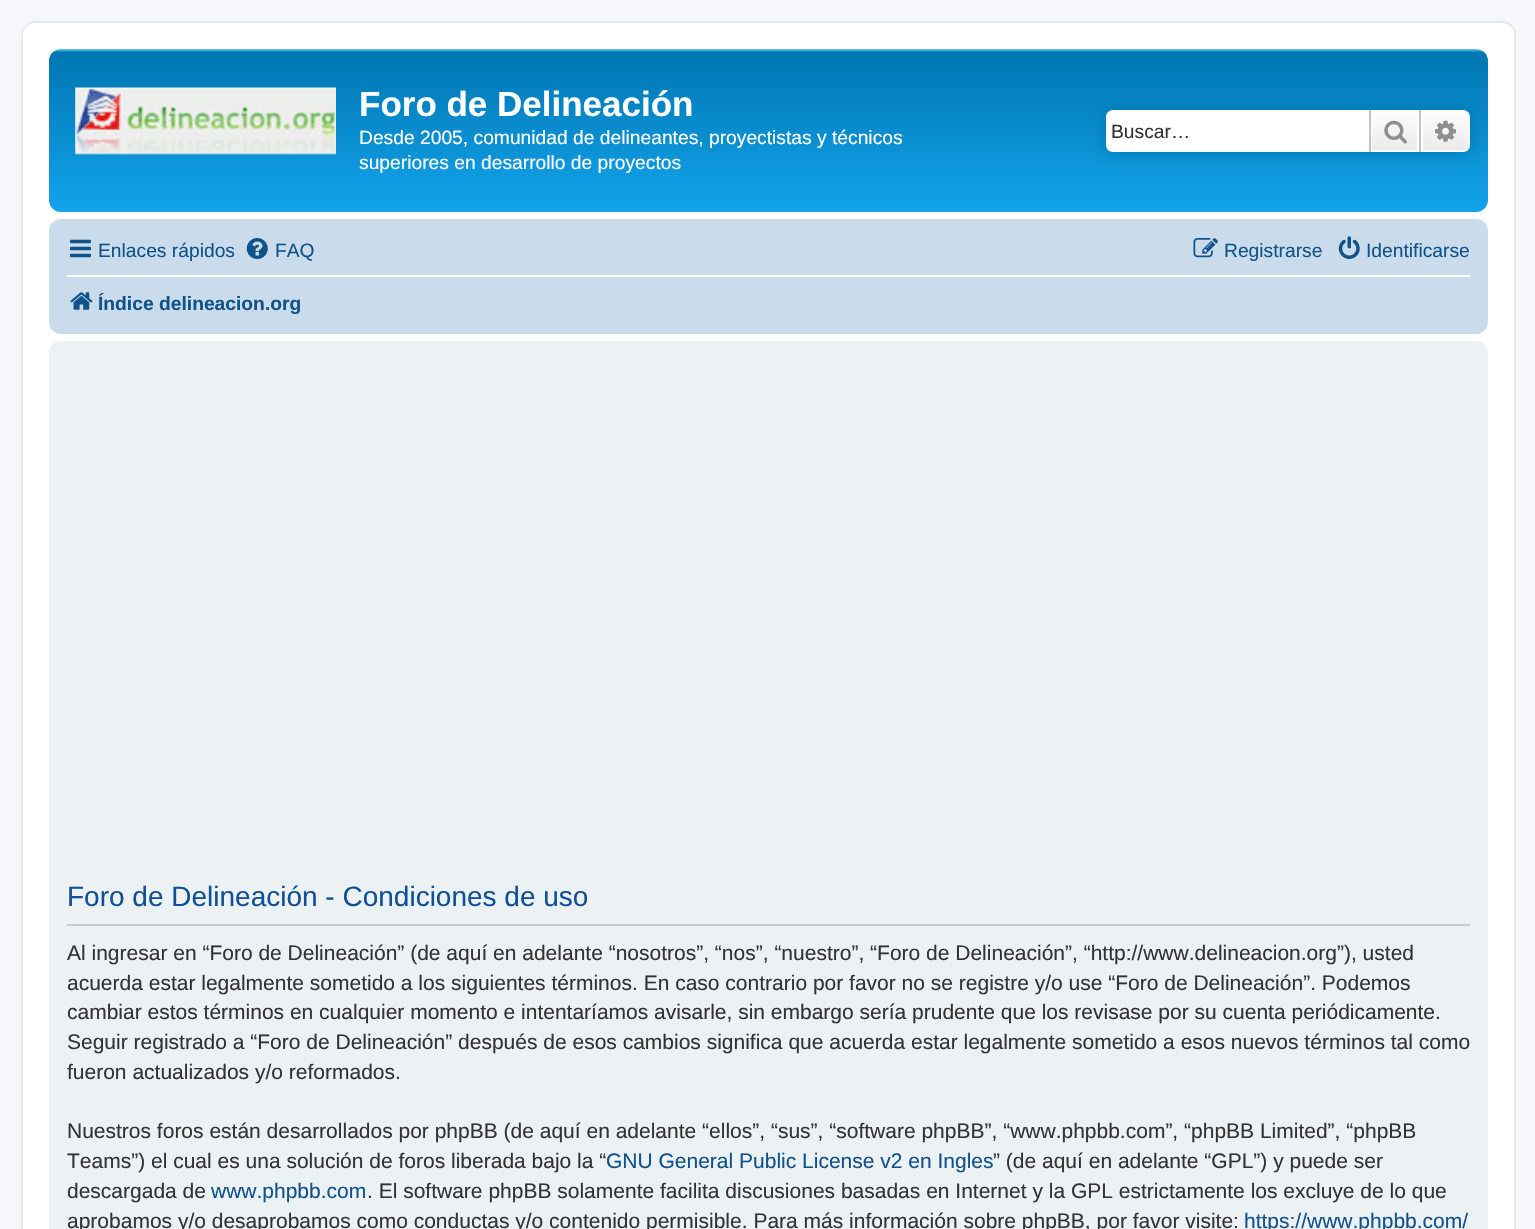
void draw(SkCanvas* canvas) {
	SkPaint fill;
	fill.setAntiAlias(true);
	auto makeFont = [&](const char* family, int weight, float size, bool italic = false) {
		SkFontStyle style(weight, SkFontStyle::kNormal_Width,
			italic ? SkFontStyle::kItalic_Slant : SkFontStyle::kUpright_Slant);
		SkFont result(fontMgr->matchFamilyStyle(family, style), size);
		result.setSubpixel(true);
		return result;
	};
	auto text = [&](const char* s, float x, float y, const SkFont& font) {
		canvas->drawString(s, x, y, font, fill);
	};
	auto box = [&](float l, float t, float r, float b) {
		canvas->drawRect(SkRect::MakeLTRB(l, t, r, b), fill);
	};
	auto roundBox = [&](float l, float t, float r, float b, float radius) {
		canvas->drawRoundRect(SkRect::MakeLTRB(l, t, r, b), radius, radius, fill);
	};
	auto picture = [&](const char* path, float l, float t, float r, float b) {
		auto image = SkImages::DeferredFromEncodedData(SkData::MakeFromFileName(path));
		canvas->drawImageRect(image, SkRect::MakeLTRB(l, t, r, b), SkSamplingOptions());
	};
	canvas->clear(0xFFF5F7FA);
	fill.setColor(0xFFFFFFFF);
	canvas->drawRoundRect(SkRect::MakeLTRB(22, 22, 1515, 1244), 13, 13, fill);
	fill.setStyle(SkPaint::kStroke_Style);
	fill.setStrokeWidth(2);
	fill.setColor(0xFFE6E9ED);
	canvas->drawRoundRect(SkRect::MakeLTRB(22, 22, 1515, 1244), 13, 13, fill);
	fill.setStyle(SkPaint::kFill_Style);
	{
		const SkColor colors[] = {0xFF6ACEFF, 0xFF0076B1, 0xFF12A3EB, 0xFF12A3EB};
		const float stops[] = {0, 0.02f, 0.99f, 1};
		const SkPoint ends[] = {{768, 49}, {768, 212}};
		fill.setShader(SkGradientShader::MakeLinear(ends, colors, stops, 4, SkTileMode::kClamp));
		fill.setAlpha(255);
	}
	roundBox(49, 49, 1488, 212, 12);
	picture("image0.png", 75, 87, 336, 155);
	fill.setShader(nullptr);
	fill.setColor(0xFF0075B0);
	fill.setMaskFilter(SkMaskFilter::MakeBlur(kNormal_SkBlurStyle, 9));
	canvas->drawRoundRect(SkRect::MakeLTRB(1106, 110, 1470, 152), 7, 7, fill);
	fill.setMaskFilter(nullptr);
	fill.setColor(0xFFFFFFFF);
	canvas->drawPath(SkPathBuilder().moveTo(1113, 110).lineTo(1369, 110).lineTo(1369, 152).lineTo(1113, 152).cubicTo(1109, 152, 1106, 149, 1106, 145).lineTo(1106, 117).cubicTo(1106, 113, 1109, 110, 1113, 110).close().detach(), fill);
	{
		const SkColor colors[] = {0xFFFFFFFF, 0xFFE9E9E9};
		const float stops[] = {0, 1};
		const SkPoint ends[] = {{1395, 110}, {1395, 152}};
		fill.setShader(SkGradientShader::MakeLinear(ends, colors, stops, 2, SkTileMode::kClamp));
		fill.setAlpha(255);
	}
	box(1372, 112, 1417, 150);
	fill.setStyle(SkPaint::kStroke_Style);
	fill.setShader(nullptr);
	fill.setColor(0xFFFFFFFF);
	canvas->drawRect(SkRect::MakeLTRB(1371, 111, 1418, 151), fill);
	fill.setStyle(SkPaint::kFill_Style);
	fill.setColor(0xFFC7C3BF);
	box(1419, 110, 1421, 152);
	box(1369, 110, 1371, 152);
	picture("image1.png", 1384, 120, 1407, 144);
	{
		const SkColor colors[] = {0xFFFFFFFF, 0xFFE9E9E9};
		const float stops[] = {0, 1};
		const SkPoint ends[] = {{1446, 110}, {1446, 152}};
		fill.setShader(SkGradientShader::MakeLinear(ends, colors, stops, 2, SkTileMode::kClamp));
		fill.setAlpha(255);
	}
	canvas->drawPath(SkPathBuilder().moveTo(1422, 111).lineTo(1463, 111).cubicTo(1466.5f, 111, 1469, 113.5f, 1469, 117).lineTo(1469, 145).cubicTo(1469, 148.5f, 1466.5f, 151, 1463, 151).lineTo(1422, 151).close().detach(), fill);
	fill.setStyle(SkPaint::kStroke_Style);
	fill.setShader(nullptr);
	fill.setColor(0xFFFFFFFF);
	canvas->drawPath(SkPathBuilder().moveTo(1422, 111).lineTo(1463, 111).cubicTo(1466.5f, 111, 1469, 113.5f, 1469, 117).lineTo(1469, 145).cubicTo(1469, 148.5f, 1466.5f, 151, 1463, 151).lineTo(1422, 151).close().detach(), fill);
	picture("image2.png", 1435, 120, 1456, 142);
	fill.setStyle(SkPaint::kFill_Style);
	fill.setColor(0xFFCADCEB);
	roundBox(49, 219, 1488, 334, 12);
	picture("image3.png", 70, 239, 91, 258);
	picture("image4.png", 246, 238, 268, 259);
	picture("image5.png", 1193, 238, 1218, 258);
	picture("image6.png", 1338, 236, 1360, 259);
	fill.setColor(0xFFFFFFFF);
	box(67, 275, 1470, 277);
	picture("image7.png", 70, 292, 93, 310);
	fill.setColor(0xFFECF1F3);
	roundBox(49, 341, 1488, 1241, 12);
	fill.setColor(0xFFCCCCCC);
	box(67, 924, 1470, 926);
	auto font1 = makeFont("Liberation Sans", 700, 35);
	fill.setColor(0xFFFFFFFF);
	text("Foro de Delineación", 359, 116, font1);
	auto font2 = makeFont("Liberation Sans", 400, 19.25f);
	text("Desde 2005, comunidad de delineantes, proyectistas y técnicos", 359, 144, font2);
	text("superiores en desarrollo de proyectos", 359, 169, font2);
	fill.setColor(0xFF333333);
	text("Buscar…", 1111, 138, font2);
	fill.setColor(0xFF105289);
	text("Enlaces rápidos", 98, 257, font2);
	text("FAQ", 275, 257, font2);
	text("Registrarse", 1224, 257, font2);
	text("Identificarse", 1366, 257, font2);
	auto font3 = makeFont("Liberation Sans", 700, 19.25f);
	text("Índice delineacion.org", 98, 310, font3);
	auto font4 = makeFont("Liberation Sans", 400, 28);
	fill.setColor(0xFF115098);
	text("Foro de Delineación - Condiciones de uso", 67, 906, font4);
	auto font5 = makeFont("Liberation Sans", 400, 21);
	fill.setColor(0xFF333333);
	text("Al ingresar en “Foro de Delineación” (de aquí en adelante “nosotros”, “nos”, “nuestro”, “Foro de Delineación”, “http://www.delineacion.org”), usted", 67, 960, font5);
	text("acuerda estar legalmente sometido a los siguientes términos. En caso contrario por favor no se registre y/o use “Foro de Delineación”. Podemos", 67, 990, font5);
	text("cambiar estos términos en cualquier momento e intentaríamos avisarle, sin embargo sería prudente que los revisase por su cuenta periódicamente.", 67, 1019, font5);
	text("Seguir registrado a “Foro de Delineación” después de esos cambios significa que acuerda estar legalmente sometido a esos nuevos términos tal como", 67, 1049, font5);
	text("fueron actualizados y/o reformados.", 67, 1079, font5);
	text("Nuestros foros están desarrollados por phpBB (de aquí en adelante “ellos”, “sus”, “software phpBB”, “www.phpbb.com”, “phpBB Limited”, “phpBB", 67, 1138, font5);
	text("Teams”) el cual es una solución de foros liberada bajo la “", 67, 1168, font5);
	fill.setColor(0xFF105289);
	text("GNU General Public License v2 en Ingles", 606, 1168, font5);
	fill.setColor(0xFF333333);
	text("” (de aquí en adelante “GPL”) y puede ser", 993, 1168, font5);
	text("descargada de", 67, 1198, font5);
	fill.setColor(0xFF105289);
	text("www.phpbb.com", 211, 1198, font5);
	fill.setColor(0xFF333333);
	text(". El software phpBB solamente facilita discusiones basadas en Internet y la GPL estrictamente los excluye de lo que", 367, 1198, font5);
	text("aprobamos y/o desaprobamos como conductas y/o contenido permisible. Para más información sobre phpBB, por favor visite:", 67, 1228, font5);
	fill.setColor(0xFF105289);
	text("https://www.phpbb.com/", 1244, 1228, font5);
}
